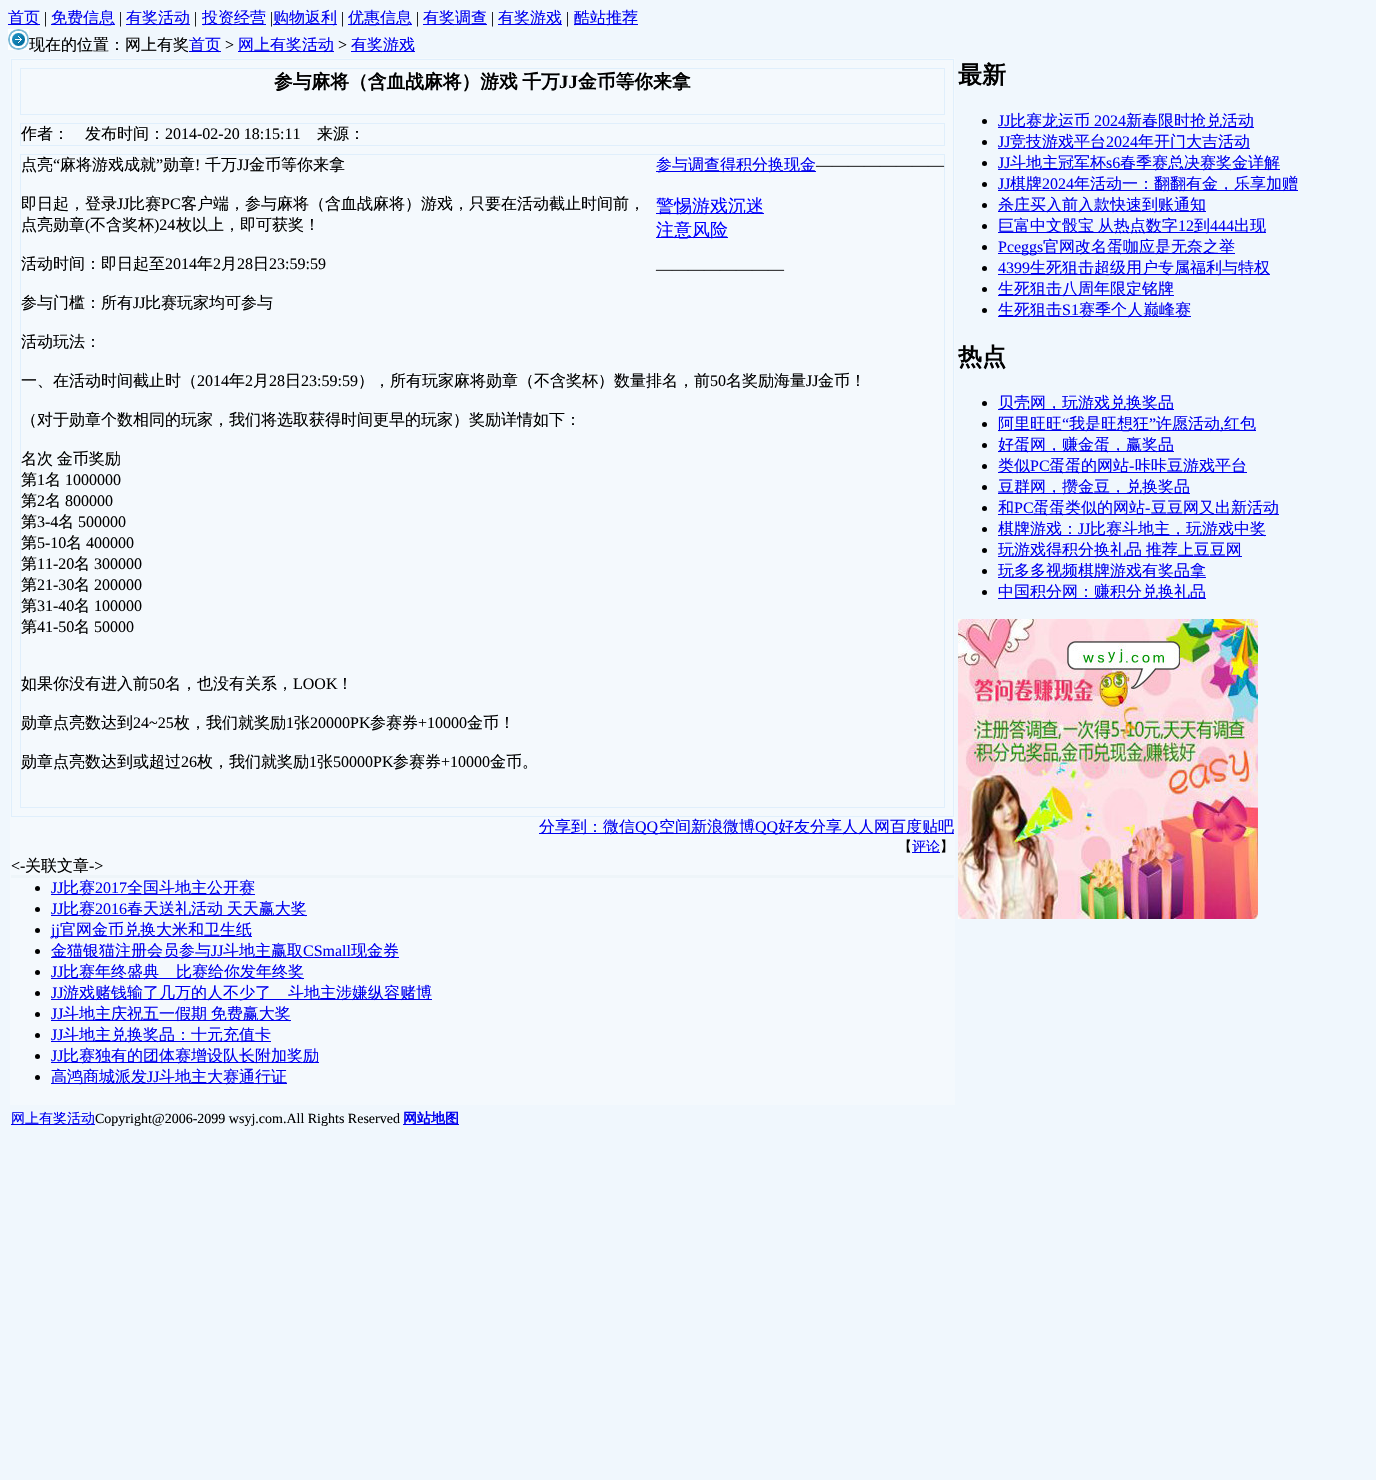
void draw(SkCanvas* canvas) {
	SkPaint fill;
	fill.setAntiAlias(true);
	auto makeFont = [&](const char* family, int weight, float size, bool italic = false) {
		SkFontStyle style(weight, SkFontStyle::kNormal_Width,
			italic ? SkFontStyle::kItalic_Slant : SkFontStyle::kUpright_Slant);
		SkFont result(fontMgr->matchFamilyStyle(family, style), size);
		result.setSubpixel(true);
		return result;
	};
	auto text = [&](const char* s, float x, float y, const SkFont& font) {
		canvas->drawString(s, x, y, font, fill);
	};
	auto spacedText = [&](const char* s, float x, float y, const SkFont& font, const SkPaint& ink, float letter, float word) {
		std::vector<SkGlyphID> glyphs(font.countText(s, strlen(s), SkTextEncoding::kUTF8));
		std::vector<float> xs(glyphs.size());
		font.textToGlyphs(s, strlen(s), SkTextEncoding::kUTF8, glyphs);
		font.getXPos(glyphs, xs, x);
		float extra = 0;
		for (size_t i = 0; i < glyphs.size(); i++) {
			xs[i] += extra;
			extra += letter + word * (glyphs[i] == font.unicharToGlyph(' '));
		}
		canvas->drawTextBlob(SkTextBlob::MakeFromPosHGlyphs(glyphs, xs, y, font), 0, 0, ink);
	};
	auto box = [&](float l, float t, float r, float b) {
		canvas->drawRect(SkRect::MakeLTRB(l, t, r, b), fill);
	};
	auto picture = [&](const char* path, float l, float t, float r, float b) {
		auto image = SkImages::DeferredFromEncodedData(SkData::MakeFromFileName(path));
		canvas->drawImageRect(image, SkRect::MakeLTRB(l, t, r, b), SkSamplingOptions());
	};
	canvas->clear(0xFFF0F7FD);
	fill.setColor(0xFF0000EE);
	box(8, 24, 40, 25);
	box(51, 24, 115, 25);
	box(126, 24, 190, 25);
	box(202, 24, 266, 25);
	box(273, 24, 337, 25);
	box(348, 24, 412, 25);
	box(423, 24, 487, 25);
	box(498, 24, 562, 25);
	box(574, 24, 638, 25);
	picture("image0.png", 8, 29, 29, 50);
	box(189, 51, 221, 52);
	box(238, 51, 334, 52);
	box(351, 51, 415, 52);
	fill.setColor(0xFFF4F9FD);
	box(10, 58, 955, 1105);
	fill.setStyle(SkPaint::kStroke_Style);
	fill.setStrokeWidth(1);
	fill.setColor(0xFFE0EFFC);
	canvas->drawRect(SkRect::MakeLTRB(11.5f, 59.5f, 953.5f, 816.5f), fill);
	canvas->drawRect(SkRect::MakeLTRB(20.5f, 68.5f, 944.5f, 114.5f), fill);
	canvas->drawRect(SkRect::MakeLTRB(20.5f, 123.5f, 944.5f, 145.5f), fill);
	canvas->drawRect(SkRect::MakeLTRB(20.5f, 154.5f, 944.5f, 807.5f), fill);
	fill.setStyle(SkPaint::kFill_Style);
	fill.setColor(0xFF0000EE);
	box(656, 171, 816, 172);
	box(656, 213, 764, 214);
	box(656, 237, 728, 238);
	box(539, 833, 954, 834);
	box(912, 852, 940, 853);
	fill.setColor(0xFFEEF5F9);
	box(11, 875, 954, 878);
	fill.setColor(0xFF000000);
	canvas->drawCircle(37.5f, 888.5f, 2.5f, fill);
	fill.setColor(0xFF0000EE);
	box(51, 894, 255, 895);
	fill.setColor(0xFF000000);
	canvas->drawCircle(37.5f, 909.5f, 2.5f, fill);
	fill.setColor(0xFF0000EE);
	box(51, 915, 307, 916);
	fill.setColor(0xFF000000);
	canvas->drawCircle(37.5f, 930.5f, 2.5f, fill);
	fill.setColor(0xFF0000EE);
	box(51, 936, 252, 937);
	fill.setColor(0xFF000000);
	canvas->drawCircle(37.5f, 951.5f, 2.5f, fill);
	fill.setColor(0xFF0000EE);
	box(51, 957, 399, 958);
	fill.setColor(0xFF000000);
	canvas->drawCircle(37.5f, 972.5f, 2.5f, fill);
	fill.setColor(0xFF0000EE);
	box(51, 978, 304, 979);
	fill.setColor(0xFF000000);
	canvas->drawCircle(37.5f, 993.5f, 2.5f, fill);
	fill.setColor(0xFF0000EE);
	box(51, 999, 432, 1000);
	fill.setColor(0xFF000000);
	canvas->drawCircle(37.5f, 1014.5f, 2.5f, fill);
	fill.setColor(0xFF0000EE);
	box(51, 1020, 291, 1021);
	fill.setColor(0xFF000000);
	canvas->drawCircle(37.5f, 1035.5f, 2.5f, fill);
	fill.setColor(0xFF0000EE);
	box(51, 1041, 271, 1042);
	fill.setColor(0xFF000000);
	canvas->drawCircle(37.5f, 1056.5f, 2.5f, fill);
	fill.setColor(0xFF0000EE);
	box(51, 1062, 319, 1063);
	fill.setColor(0xFF000000);
	canvas->drawCircle(37.5f, 1077.5f, 2.5f, fill);
	fill.setColor(0xFF0000EE);
	box(51, 1083, 287, 1084);
	fill.setColor(0xFF000000);
	canvas->drawCircle(984.5f, 121.5f, 2.5f, fill);
	fill.setColor(0xFF0000EE);
	box(998, 127, 1254, 128);
	fill.setColor(0xFF000000);
	canvas->drawCircle(984.5f, 142.5f, 2.5f, fill);
	fill.setColor(0xFF0000EE);
	box(998, 148, 1250, 149);
	fill.setColor(0xFF000000);
	canvas->drawCircle(984.5f, 163.5f, 2.5f, fill);
	fill.setColor(0xFF0000EE);
	box(998, 169, 1280, 170);
	fill.setColor(0xFF000000);
	canvas->drawCircle(984.5f, 184.5f, 2.5f, fill);
	fill.setColor(0xFF0000EE);
	box(998, 190, 1298, 191);
	fill.setColor(0xFF000000);
	canvas->drawCircle(984.5f, 205.5f, 2.5f, fill);
	fill.setColor(0xFF0000EE);
	box(998, 211, 1206, 212);
	fill.setColor(0xFF000000);
	canvas->drawCircle(984.5f, 226.5f, 2.5f, fill);
	fill.setColor(0xFF0000EE);
	box(998, 232, 1266, 233);
	fill.setColor(0xFF000000);
	canvas->drawCircle(984.5f, 247.5f, 2.5f, fill);
	fill.setColor(0xFF0000EE);
	box(998, 253, 1235, 254);
	fill.setColor(0xFF000000);
	canvas->drawCircle(984.5f, 268.5f, 2.5f, fill);
	fill.setColor(0xFF0000EE);
	box(998, 274, 1270, 275);
	fill.setColor(0xFF000000);
	canvas->drawCircle(984.5f, 289.5f, 2.5f, fill);
	fill.setColor(0xFF0000EE);
	box(998, 295, 1174, 296);
	fill.setColor(0xFF000000);
	canvas->drawCircle(984.5f, 310.5f, 2.5f, fill);
	fill.setColor(0xFF0000EE);
	box(998, 316, 1191, 317);
	fill.setColor(0xFF000000);
	canvas->drawCircle(984.5f, 403.5f, 2.5f, fill);
	fill.setColor(0xFF0000EE);
	box(998, 409, 1174, 410);
	fill.setColor(0xFF000000);
	canvas->drawCircle(984.5f, 424.5f, 2.5f, fill);
	fill.setColor(0xFF0000EE);
	box(998, 430, 1256, 431);
	fill.setColor(0xFF000000);
	canvas->drawCircle(984.5f, 445.5f, 2.5f, fill);
	fill.setColor(0xFF0000EE);
	box(998, 451, 1174, 452);
	fill.setColor(0xFF000000);
	canvas->drawCircle(984.5f, 466.5f, 2.5f, fill);
	fill.setColor(0xFF0000EE);
	box(998, 472, 1247, 473);
	fill.setColor(0xFF000000);
	canvas->drawCircle(984.5f, 487.5f, 2.5f, fill);
	fill.setColor(0xFF0000EE);
	box(998, 493, 1190, 494);
	fill.setColor(0xFF000000);
	canvas->drawCircle(984.5f, 508.5f, 2.5f, fill);
	fill.setColor(0xFF0000EE);
	box(998, 514, 1279, 515);
	fill.setColor(0xFF000000);
	canvas->drawCircle(984.5f, 529.5f, 2.5f, fill);
	fill.setColor(0xFF0000EE);
	box(998, 535, 1266, 536);
	fill.setColor(0xFF000000);
	canvas->drawCircle(984.5f, 550.5f, 2.5f, fill);
	fill.setColor(0xFF0000EE);
	box(998, 556, 1242, 557);
	fill.setColor(0xFF000000);
	canvas->drawCircle(984.5f, 571.5f, 2.5f, fill);
	fill.setColor(0xFF0000EE);
	box(998, 577, 1206, 578);
	fill.setColor(0xFF000000);
	canvas->drawCircle(984.5f, 592.5f, 2.5f, fill);
	fill.setColor(0xFF0000EE);
	box(998, 598, 1206, 599);
	picture("image1.png", 958, 619, 1258, 919);
	box(11, 1124, 95, 1125);
	box(403, 1124, 459, 1125);
	auto font1 = makeFont("WenQuanYi Zen Hei", 500, 16);
	text("首页", 8, 23, font1);
	auto font2 = makeFont("Liberation Serif", 400, 16);
	fill.setColor(0xFF000000);
	text("|", 44, 23, font2);
	fill.setColor(0xFF0000EE);
	text("免费信息", 51, 23, font1);
	fill.setColor(0xFF000000);
	text("|", 119, 23, font2);
	fill.setColor(0xFF0000EE);
	text("有奖活动", 126, 23, font1);
	fill.setColor(0xFF000000);
	text("|", 194, 23, font2);
	fill.setColor(0xFF0000EE);
	text("投资经营", 202, 23, font1);
	fill.setColor(0xFF000000);
	text("|", 270, 23, font2);
	fill.setColor(0xFF0000EE);
	text("购物返利", 273, 23, font1);
	fill.setColor(0xFF000000);
	text("|", 341, 23, font2);
	fill.setColor(0xFF0000EE);
	text("优惠信息", 348, 23, font1);
	fill.setColor(0xFF000000);
	text("|", 416, 23, font2);
	fill.setColor(0xFF0000EE);
	text("有奖调查", 423, 23, font1);
	fill.setColor(0xFF000000);
	text("|", 491, 23, font2);
	fill.setColor(0xFF0000EE);
	text("有奖游戏", 498, 23, font1);
	fill.setColor(0xFF000000);
	text("|", 566, 23, font2);
	fill.setColor(0xFF0000EE);
	text("酷站推荐", 574, 23, font1);
	fill.setColor(0xFF000000);
	text("现在的位置：网上有奖", 29, 50, font1);
	fill.setColor(0xFF0000EE);
	text("首页", 189, 50, font1);
	fill.setColor(0xFF000000);
	text(">", 225, 50, font2);
	fill.setColor(0xFF0000EE);
	text("网上有奖活动", 238, 50, font1);
	fill.setColor(0xFF000000);
	text(">", 338, 50, font2);
	fill.setColor(0xFF0000EE);
	text("有奖游戏", 351, 50, font1);
	auto font3 = makeFont("WenQuanYi Zen Hei", 700, 18.75f);
	fill.setColor(0xFF000000);
	spacedText("参与麻将（含血战麻将）游戏 千万", 274, 88, font3, fill, 0, -1);
	auto font4 = makeFont("Liberation Serif", 700, 18.75f);
	text("JJ", 559, 88, font4);
	text("金币等你来拿", 578, 88, font3);
	text("作者：　发布时间：", 21, 139, font1);
	text("2014-02-20 18:15:11", 165, 139, font2);
	text("来源：", 317, 139, font1);
	text("点亮", 21, 170, font1);
	text("“", 53, 170, font2);
	text("麻将游戏成就", 60, 170, font1);
	text("”", 156, 170, font2);
	text("勋章", 163, 170, font1);
	text("!", 195, 170, font2);
	text("千万", 205, 170, font1);
	text("JJ", 237, 170, font2);
	text("金币等你来拿", 249, 170, font1);
	text("即日起，登录", 21, 209, font1);
	text("JJ", 117, 209, font2);
	text("比赛", 129, 209, font1);
	text("PC", 161, 209, font2);
	text("客户端，参与麻将（含血战麻将）游戏，只要在活动截止时间前，", 181, 209, font1);
	text("点亮勋章", 21, 230, font1);
	text("(", 85, 230, font2);
	text("不含奖杯", 90, 230, font1);
	text(")24", 154, 230, font2);
	text("枚以上，即可获奖！", 176, 230, font1);
	text("活动时间：即日起至", 21, 269, font1);
	text("2014", 165, 269, font2);
	text("年", 197, 269, font1);
	text("2", 213, 269, font2);
	text("月", 221, 269, font1);
	text("28", 237, 269, font2);
	text("日", 253, 269, font1);
	text("23:59:59", 269, 269, font2);
	text("参与门槛：所有", 21, 308, font1);
	text("JJ", 133, 308, font2);
	text("比赛玩家均可参与", 145, 308, font1);
	text("活动玩法：", 21, 347, font1);
	text("一、在活动时间截止时（", 21, 386, font1);
	text("2014", 197, 386, font2);
	text("年", 229, 386, font1);
	text("2", 245, 386, font2);
	text("月", 253, 386, font1);
	text("28", 269, 386, font2);
	text("日", 285, 386, font1);
	text("23:59:59", 301, 386, font2);
	text("），所有玩家麻将勋章（不含奖杯）数量排名，前", 358, 386, font1);
	text("50", 710, 386, font2);
	text("名奖励海量", 726, 386, font1);
	text("JJ", 806, 386, font2);
	text("金币！", 818, 386, font1);
	text("（对于勋章个数相同的玩家，我们将选取获得时间更早的玩家）奖励详情如下：", 21, 425, font1);
	spacedText("名次 金币奖励", 21, 464, font1, fill, 0, -1);
	text("第", 21, 485, font1);
	text("1", 37, 485, font2);
	text("名", 45, 485, font1);
	text("1000000", 65, 485, font2);
	text("第", 21, 506, font1);
	text("2", 37, 506, font2);
	text("名", 45, 506, font1);
	text("800000", 65, 506, font2);
	text("第", 21, 527, font1);
	text("3-4", 37, 527, font2);
	text("名", 58, 527, font1);
	text("500000", 78, 527, font2);
	text("第", 21, 548, font1);
	text("5-10", 37, 548, font2);
	text("名", 66, 548, font1);
	text("400000", 86, 548, font2);
	text("第", 21, 569, font1);
	text("11-20", 37, 569, font2);
	text("名", 74, 569, font1);
	text("300000", 94, 569, font2);
	text("第", 21, 590, font1);
	text("21-30", 37, 590, font2);
	text("名", 74, 590, font1);
	text("200000", 94, 590, font2);
	text("第", 21, 611, font1);
	text("31-40", 37, 611, font2);
	text("名", 74, 611, font1);
	text("100000", 94, 611, font2);
	text("第", 21, 632, font1);
	text("41-50", 37, 632, font2);
	text("名", 74, 632, font1);
	text("50000", 94, 632, font2);
	text("如果你没有进入前", 21, 689, font1);
	text("50", 149, 689, font2);
	text("名，也没有关系，", 165, 689, font1);
	text("LOOK", 293, 689, font2);
	text("！", 337, 689, font1);
	text("勋章点亮数达到", 21, 728, font1);
	text("24~25", 133, 728, font2);
	text("枚，我们就奖励", 174, 728, font1);
	text("1", 286, 728, font2);
	text("张", 294, 728, font1);
	text("20000PK", 310, 728, font2);
	text("参赛券", 370, 728, font1);
	text("+10000", 418, 728, font2);
	text("金币！", 467, 728, font1);
	text("勋章点亮数达到或超过", 21, 767, font1);
	text("26", 181, 767, font2);
	text("枚，我们就奖励", 197, 767, font1);
	text("1", 309, 767, font2);
	text("张", 317, 767, font1);
	text("50000PK", 333, 767, font2);
	text("参赛券", 393, 767, font1);
	text("+10000", 441, 767, font2);
	text("金币。", 490, 767, font1);
	fill.setColor(0xFF0000EE);
	text("参与调查得积分换现金", 656, 170, font1);
	fill.setColor(0xFF000000);
	text("————————", 816, 170, font2);
	auto font5 = makeFont("WenQuanYi Zen Hei", 500, 18);
	fill.setColor(0xFF0000FF);
	text("警惕游戏沉迷", 656, 212, font5);
	text("注意风险", 656, 236, font5);
	fill.setColor(0xFF000000);
	text("————————", 656, 274, font2);
	fill.setColor(0xFF0000EE);
	text("分享到：微信", 539, 832, font1);
	text("QQ", 635, 832, font2);
	text("空间新浪微博", 659, 832, font1);
	text("QQ", 755, 832, font2);
	text("好友分享人人网百度贴吧", 778, 832, font1);
	auto font6 = makeFont("WenQuanYi Zen Hei", 500, 14);
	fill.setColor(0xFF000000);
	text("【", 898, 851, font6);
	fill.setColor(0xFF0000EE);
	text("评论", 912, 851, font6);
	fill.setColor(0xFF000000);
	text("】", 940, 851, font6);
	text("<-", 11, 871, font2);
	text("关联文章", 25, 871, font1);
	text("->", 89, 871, font2);
	fill.setColor(0xFF0000EE);
	text("JJ", 51, 893, font2);
	text("比赛", 63, 893, font1);
	text("2017", 95, 893, font2);
	text("全国斗地主公开赛", 127, 893, font1);
	text("JJ", 51, 914, font2);
	text("比赛", 63, 914, font1);
	text("2016", 95, 914, font2);
	spacedText("春天送礼活动 天天赢大奖", 127, 914, font1, fill, 0, -1);
	text("jj", 51, 935, font2);
	text("官网金币兑换大米和卫生纸", 60, 935, font1);
	text("金猫银猫注册会员参与", 51, 956, font1);
	text("JJ", 211, 956, font2);
	text("斗地主赢取", 223, 956, font1);
	text("CSmall", 303, 956, font2);
	text("现金券", 351, 956, font1);
	text("JJ", 51, 977, font2);
	text("比赛年终盛典", 63, 977, font1);
	text("比赛给你发年终奖", 176, 977, font1);
	text("JJ", 51, 998, font2);
	text("游戏赌钱输了几万的人不少了", 63, 998, font1);
	text("斗地主涉嫌纵容赌博", 288, 998, font1);
	text("JJ", 51, 1019, font2);
	spacedText("斗地主庆祝五一假期 免费赢大奖", 63, 1019, font1, fill, 0, -1);
	text("JJ", 51, 1040, font2);
	text("斗地主兑换奖品：十元充值卡", 63, 1040, font1);
	text("JJ", 51, 1061, font2);
	text("比赛独有的团体赛增设队长附加奖励", 63, 1061, font1);
	text("高鸿商城派发", 51, 1082, font1);
	text("JJ", 147, 1082, font2);
	text("斗地主大赛通行证", 159, 1082, font1);
	auto font7 = makeFont("WenQuanYi Zen Hei", 700, 24);
	fill.setColor(0xFF000000);
	text("最新", 958, 83, font7);
	fill.setColor(0xFF0000EE);
	text("JJ", 998, 126, font2);
	text("比赛龙运币", 1010, 126, font1);
	text("2024", 1094, 126, font2);
	text("新春限时抢兑活动", 1126, 126, font1);
	text("JJ", 998, 147, font2);
	text("竞技游戏平台", 1010, 147, font1);
	text("2024", 1106, 147, font2);
	text("年开门大吉活动", 1138, 147, font1);
	text("JJ", 998, 168, font2);
	text("斗地主冠军杯", 1010, 168, font1);
	text("s6", 1106, 168, font2);
	text("春季赛总决赛奖金详解", 1120, 168, font1);
	text("JJ", 998, 189, font2);
	text("棋牌", 1010, 189, font1);
	text("2024", 1042, 189, font2);
	text("年活动一：翻翻有金，乐享加赠", 1074, 189, font1);
	text("杀庄买入前入款快速到账通知", 998, 210, font1);
	spacedText("巨富中文骰宝 从热点数字", 998, 231, font1, fill, 0, -1);
	text("12", 1178, 231, font2);
	text("到", 1194, 231, font1);
	text("444", 1210, 231, font2);
	text("出现", 1234, 231, font1);
	text("Pceggs", 998, 252, font2);
	text("官网改名蛋咖应是无奈之举", 1043, 252, font1);
	text("4399", 998, 273, font2);
	text("生死狙击超级用户专属福利与特权", 1030, 273, font1);
	text("生死狙击八周年限定铭牌", 998, 294, font1);
	text("生死狙击", 998, 315, font1);
	text("S1", 1062, 315, font2);
	text("赛季个人巅峰赛", 1079, 315, font1);
	fill.setColor(0xFF000000);
	text("热点", 958, 365, font7);
	fill.setColor(0xFF0000EE);
	text("贝壳网，玩游戏兑换奖品", 998, 408, font1);
	text("阿里旺旺", 998, 429, font1);
	text("“", 1062, 429, font2);
	text("我是旺想狂", 1069, 429, font1);
	text("”", 1149, 429, font2);
	text("许愿活动", 1156, 429, font1);
	text("红包", 1224, 429, font1);
	text(",", 1220, 429, font2);
	text("好蛋网，赚金蛋，赢奖品", 998, 450, font1);
	text("类似", 998, 471, font1);
	text("PC", 1030, 471, font2);
	text("蛋蛋的网站", 1049, 471, font1);
	text("-", 1129, 471, font2);
	text("咔咔豆游戏平台", 1135, 471, font1);
	text("豆群网，攒金豆，兑换奖品", 998, 492, font1);
	text("和", 998, 513, font1);
	text("PC", 1014, 513, font2);
	text("蛋蛋类似的网站", 1033, 513, font1);
	text("-", 1145, 513, font2);
	text("豆豆网又出新活动", 1151, 513, font1);
	text("棋牌游戏：", 998, 534, font1);
	text("JJ", 1078, 534, font2);
	text("比赛斗地主，玩游戏中奖", 1090, 534, font1);
	spacedText("玩游戏得积分换礼品 推荐上豆豆网", 998, 555, font1, fill, 0, -1);
	text("玩多多视频棋牌游戏有奖品拿", 998, 576, font1);
	text("中国积分网：赚积分兑换礼品", 998, 597, font1);
	text("网上有奖活动", 11, 1123, font6);
	auto font8 = makeFont("Liberation Serif", 400, 14);
	fill.setColor(0xFF000000);
	text("Copyright@2006-2099 wsyj.com.All Rights Reserved", 95, 1123, font8);
	auto font9 = makeFont("WenQuanYi Zen Hei", 700, 14);
	fill.setColor(0xFF0000EE);
	text("网站地图", 403, 1123, font9);
}
